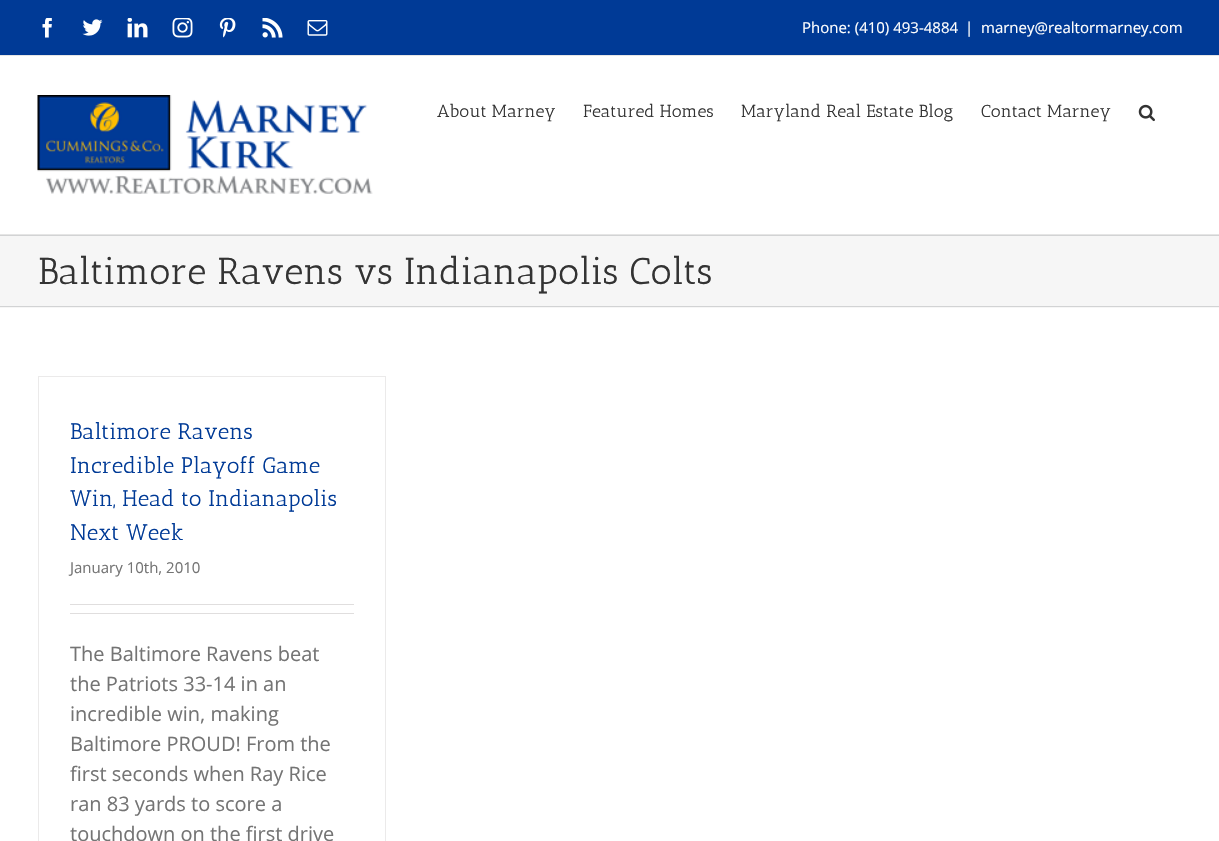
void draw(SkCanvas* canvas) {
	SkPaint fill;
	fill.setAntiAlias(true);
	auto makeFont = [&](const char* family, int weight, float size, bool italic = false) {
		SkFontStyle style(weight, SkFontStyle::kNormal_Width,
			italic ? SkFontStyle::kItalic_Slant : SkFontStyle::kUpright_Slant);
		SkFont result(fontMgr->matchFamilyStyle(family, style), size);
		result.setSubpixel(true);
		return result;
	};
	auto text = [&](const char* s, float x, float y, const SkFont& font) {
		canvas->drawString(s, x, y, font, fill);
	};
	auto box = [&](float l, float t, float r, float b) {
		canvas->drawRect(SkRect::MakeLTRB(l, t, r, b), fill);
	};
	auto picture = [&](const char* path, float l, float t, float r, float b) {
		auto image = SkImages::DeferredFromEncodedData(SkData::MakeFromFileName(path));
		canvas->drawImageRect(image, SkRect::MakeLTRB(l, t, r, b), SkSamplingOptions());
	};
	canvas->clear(0xFFFFFFFF);
	fill.setColor(0xFF003A96);
	box(0, 0, 1219, 55);
	fill.setColor(0xFFE5E5E5);
	box(0, 55, 1219, 56);
	picture("image0.png", 42, 18, 52, 38);
	picture("image1.png", 82, 19, 103, 36);
	picture("image2.png", 127, 18, 148, 38);
	picture("image3.png", 172, 18, 193, 38);
	picture("image4.png", 219, 18, 236, 38);
	picture("image5.png", 262, 18, 283, 38);
	picture("image6.png", 307, 20, 328, 36);
	box(0, 234, 1219, 235);
	picture("image7.png", 37, 95, 373, 194);
	picture("image8.png", 1138, 104, 1155, 122);
	fill.setColor(0xFFF6F6F6);
	box(0, 236, 1219, 308);
	fill.setColor(0xFFD2D3D4);
	box(0, 235, 1219, 236);
	box(0, 306, 1219, 307);
	fill.setColor(0xFFEBEAEA);
	box(38, 376, 386, 377);
	box(385, 376, 386, 841);
	box(38, 376, 39, 841);
	fill.setColor(0xFFE0DEDE);
	box(70, 604, 354, 605);
	box(70, 613, 354, 614);
	auto font1 = makeFont("Open Sans", 400, 15);
	fill.setColor(0xFFFFFFFF);
	text("Phone: (410) 493-4884", 802, 33, font1);
	text("|", 965, 33, font1);
	text("marney@realtormarney.com", 981, 33, font1);
	auto font2 = makeFont("Antic Slab", 400, 17.5f);
	fill.setColor(0xFF333333);
	text("About Marney", 437, 117, font2);
	text("Featured Homes", 583, 117, font2);
	text("Maryland Real Estate Blog", 741, 117, font2);
	text("Contact Marney", 981, 117, font2);
	auto font3 = makeFont("Antic Slab", 400, 37.5f);
	text("Baltimore Ravens vs Indianapolis Colts", 38, 284, font3);
	auto font4 = makeFont("Antic Slab", 400, 22.5f);
	fill.setColor(0xFF003A96);
	text("Baltimore Ravens", 70, 439, font4);
	text("Incredible Playoff Game", 70, 473, font4);
	text("Win, Head to Indianapolis", 70, 506, font4);
	text("Next Week", 70, 540, font4);
	fill.setColor(0xFF747474);
	text("January 10th, 2010", 70, 573, font1);
	auto font5 = makeFont("Open Sans", 400, 20);
	text("The Baltimore Ravens beat", 70, 661, font5);
	text("the Patriots 33-14 in an", 70, 691, font5);
	text("incredible win, making", 70, 721, font5);
	text("Baltimore PROUD! From the", 70, 751, font5);
	text("first seconds when Ray Rice", 70, 781, font5);
	text("ran 83 yards to score a", 70, 811, font5);
	text("touchdown on the first drive", 70, 841, font5);
}
